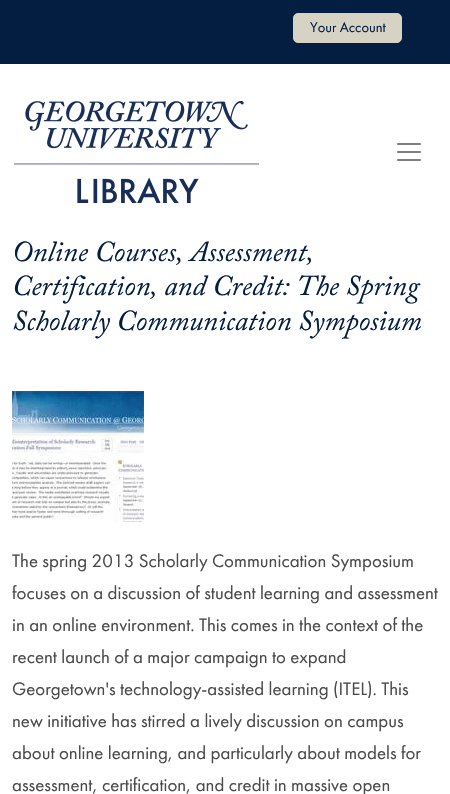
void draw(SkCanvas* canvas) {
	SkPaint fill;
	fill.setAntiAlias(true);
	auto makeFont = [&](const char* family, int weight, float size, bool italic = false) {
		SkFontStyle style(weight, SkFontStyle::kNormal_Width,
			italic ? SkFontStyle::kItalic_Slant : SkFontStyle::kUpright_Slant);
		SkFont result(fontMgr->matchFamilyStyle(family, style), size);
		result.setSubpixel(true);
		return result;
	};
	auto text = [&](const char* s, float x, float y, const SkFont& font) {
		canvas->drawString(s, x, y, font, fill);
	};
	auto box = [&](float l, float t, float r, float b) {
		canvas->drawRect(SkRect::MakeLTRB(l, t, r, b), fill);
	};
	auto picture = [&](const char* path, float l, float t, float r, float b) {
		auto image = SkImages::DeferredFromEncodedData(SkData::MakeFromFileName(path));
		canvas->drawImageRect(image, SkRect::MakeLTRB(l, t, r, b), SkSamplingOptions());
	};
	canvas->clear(0xFFFFFFFF);
	fill.setColor(0xFF041E42);
	box(0, 0, 450, 64);
	fill.setColor(0xFFD6D2C4);
	canvas->drawRoundRect(SkRect::MakeLTRB(293.5f, 13.5f, 401.5f, 42.5f), 4.5f, 4.5f, fill);
	fill.setStyle(SkPaint::kStroke_Style);
	fill.setStrokeWidth(1);
	canvas->drawRoundRect(SkRect::MakeLTRB(293.5f, 13.5f, 401.5f, 42.5f), 4.5f, 4.5f, fill);
	picture("image0.png", 14, 101, 259, 203);
	picture("image1.png", 397, 143, 421, 161);
	picture("image2.png", 12, 391, 144, 522);
	auto font1 = makeFont("Futura PT", 400, 14.5f);
	fill.setStyle(SkPaint::kFill_Style);
	fill.setColor(0xFF041E42);
	text("Your Account", 310, 32, font1);
	auto font2 = makeFont("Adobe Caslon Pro", 400, 28.75f, true);
	text("Online Courses, Assessment,", 12, 261, font2);
	text("Certification, and Credit: The Spring", 12, 295, font2);
	text("Scholarly Communication Symposium", 12, 330, font2);
	auto font3 = makeFont("Futura PT", 400, 18.85f);
	fill.setColor(0xFF4A4A4A);
	text("The spring 2013 Scholarly Communication Symposium", 12, 567, font3);
	text("focuses on a discussion of student learning and assessment", 12, 599, font3);
	text("in an online environment. This comes in the context of the", 12, 631, font3);
	text("recent launch of a major campaign to expand", 12, 663, font3);
	text("Georgetown's technology-assisted learning (ITEL). This", 12, 695, font3);
	text("new initiative has stirred a lively discussion on campus", 12, 727, font3);
	text("about online learning, and particularly about models for", 12, 759, font3);
	text("assessment, certification, and credit in massive open", 12, 791, font3);
}
